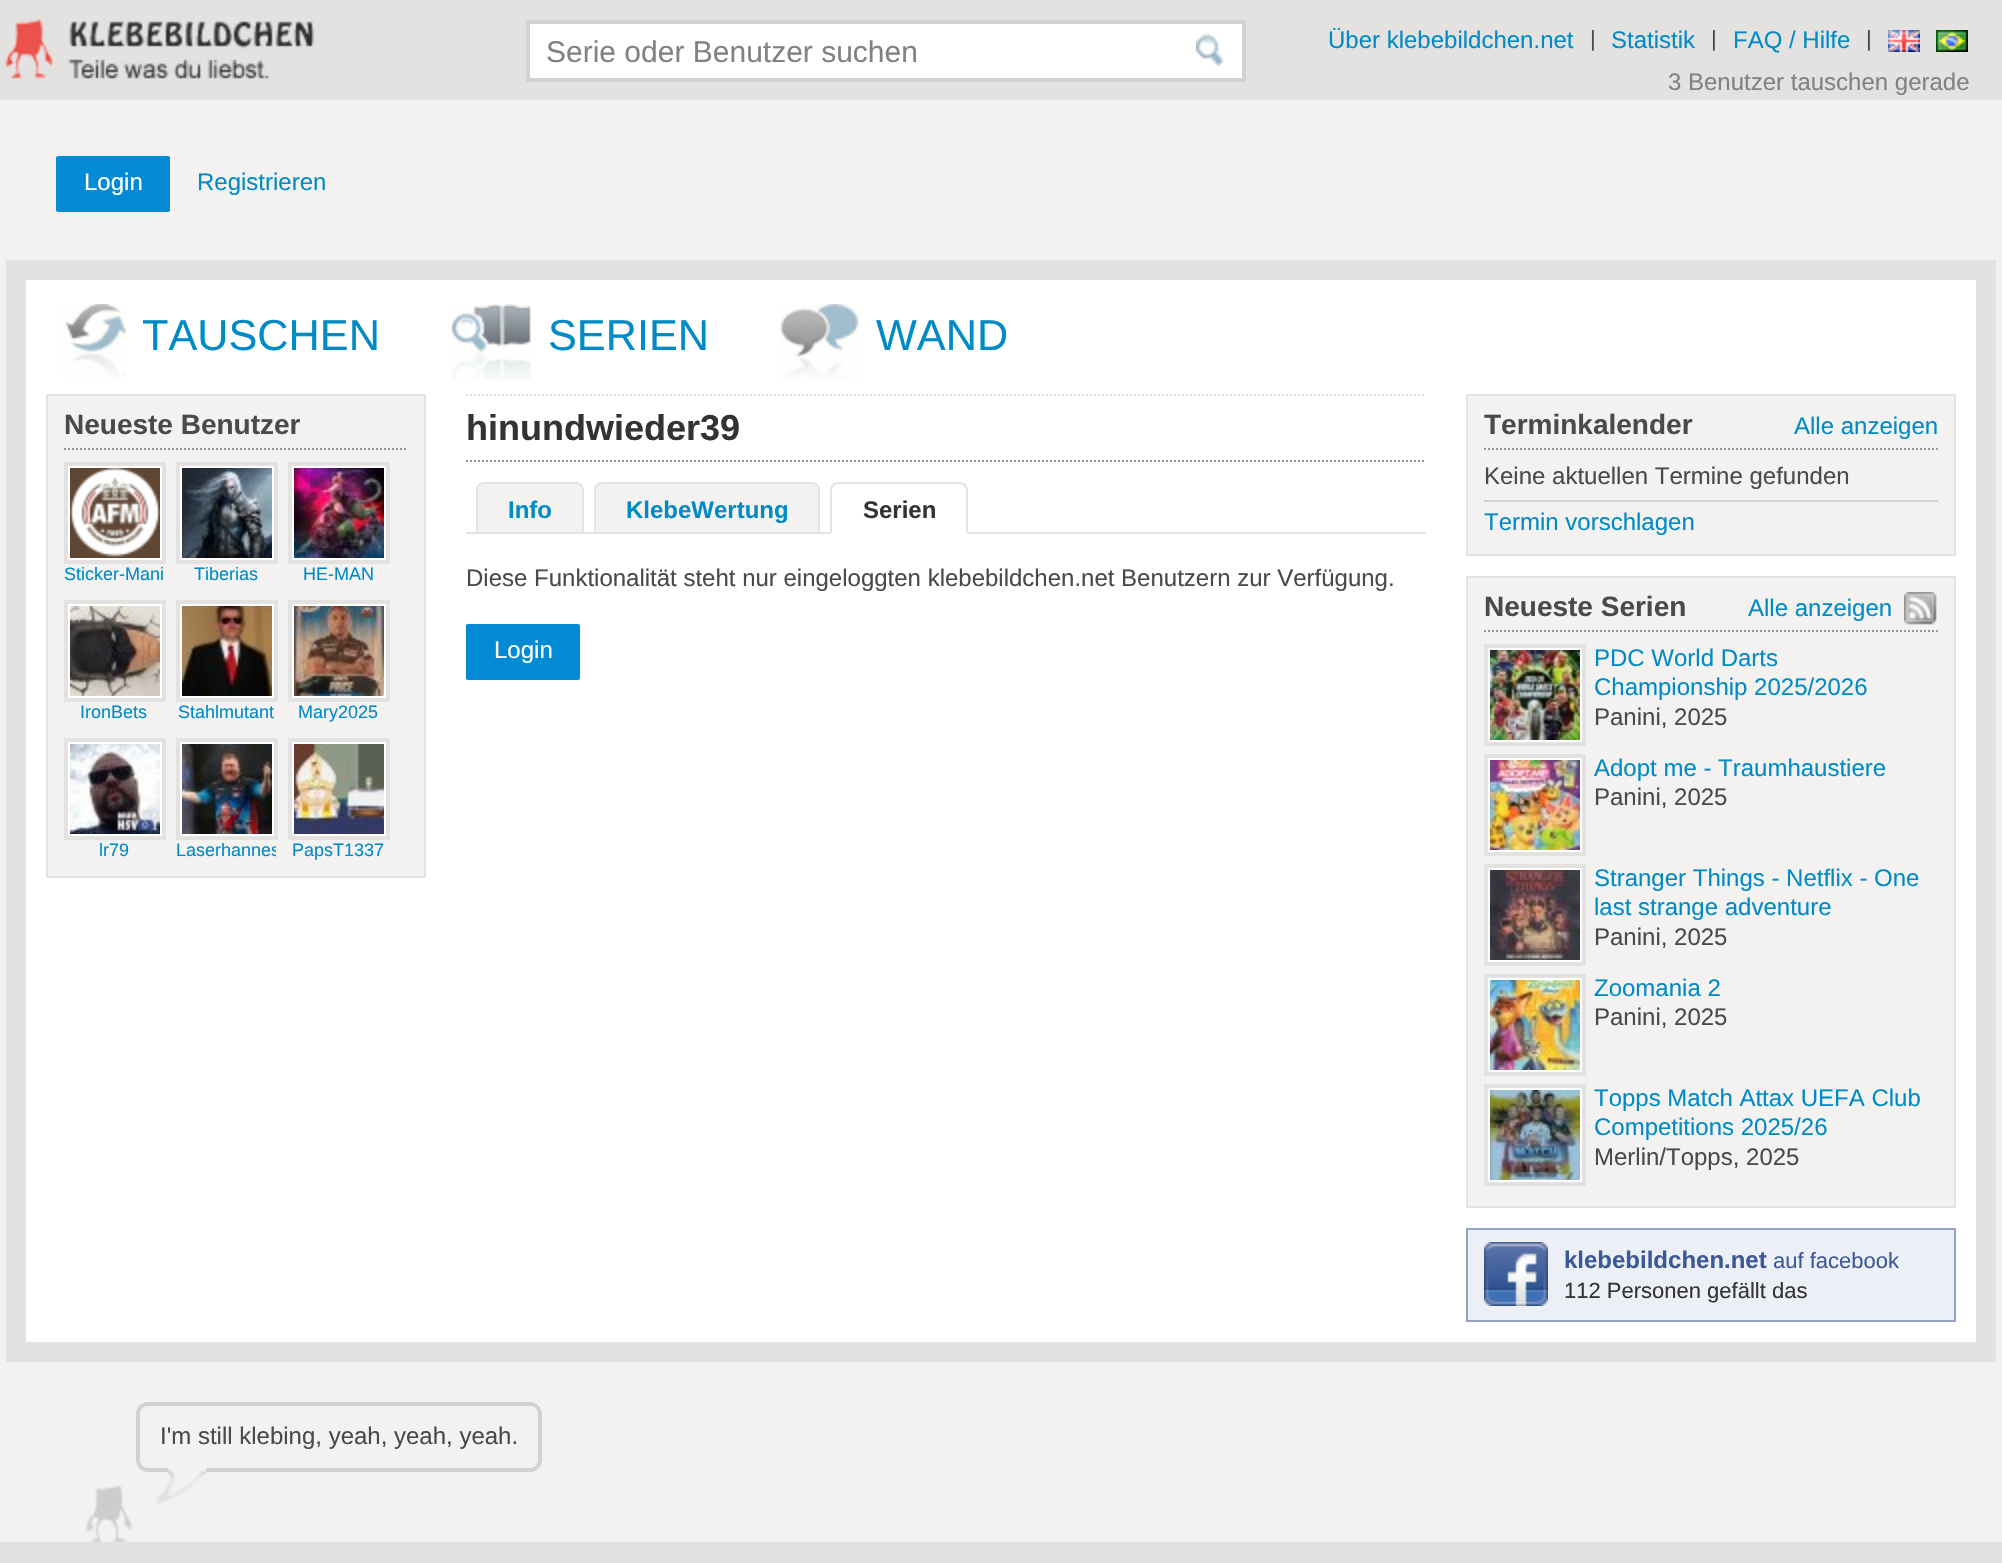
void draw(SkCanvas* canvas) {
	SkPaint fill;
	fill.setAntiAlias(true);
	auto makeFont = [&](const char* family, int weight, float size, bool italic = false) {
		SkFontStyle style(weight, SkFontStyle::kNormal_Width,
			italic ? SkFontStyle::kItalic_Slant : SkFontStyle::kUpright_Slant);
		SkFont result(fontMgr->matchFamilyStyle(family, style), size);
		result.setSubpixel(true);
		return result;
	};
	auto text = [&](const char* s, float x, float y, const SkFont& font) {
		canvas->drawString(s, x, y, font, fill);
	};
	auto box = [&](float l, float t, float r, float b) {
		canvas->drawRect(SkRect::MakeLTRB(l, t, r, b), fill);
	};
	auto roundBox = [&](float l, float t, float r, float b, float radius) {
		canvas->drawRoundRect(SkRect::MakeLTRB(l, t, r, b), radius, radius, fill);
	};
	auto picture = [&](const char* path, float l, float t, float r, float b) {
		auto image = SkImages::DeferredFromEncodedData(SkData::MakeFromFileName(path));
		canvas->drawImageRect(image, SkRect::MakeLTRB(l, t, r, b), SkSamplingOptions());
	};
	canvas->clear(0xFFE3E2E0);
	picture("image0.png", 5, 19, 315, 79);
	fill.setColor(0xFFFFFFFF);
	roundBox(526, 20, 1246, 82, 2);
	picture("image1.png", 1196, 34, 1225, 66);
	fill.setStyle(SkPaint::kStroke_Style);
	fill.setStrokeWidth(4);
	fill.setColor(0xFFD2D2D2);
	canvas->drawRect(SkRect::MakeLTRB(528, 22, 1244, 80), fill);
	picture("image2.png", 1888, 30, 1920, 52);
	picture("image3.png", 1936, 30, 1968, 52);
	fill.setStyle(SkPaint::kFill_Style);
	fill.setColor(0xFFF3F2F0);
	box(0, 100, 2002, 1542);
	fill.setColor(0xFF028AD4);
	roundBox(56, 156, 170, 212, 2);
	fill.setColor(0xFFFFFFFF);
	canvas->drawRect(SkRect::MakeLTRB(16, 270, 1986, 1352), fill);
	fill.setStyle(SkPaint::kStroke_Style);
	fill.setStrokeWidth(20);
	fill.setColor(0xFFE3E2E0);
	canvas->drawRect(SkRect::MakeLTRB(16, 270, 1986, 1352), fill);
	picture("image4.png", 62, 304, 126, 378);
	picture("image5.png", 452, 304, 531, 380);
	picture("image6.png", 780, 304, 860, 380);
	fill.setStyle(SkPaint::kFill_Style);
	fill.setColor(0xFFF3F2F1);
	canvas->drawRect(SkRect::MakeLTRB(47, 395, 425, 877), fill);
	fill.setStyle(SkPaint::kStroke_Style);
	fill.setStrokeWidth(2);
	fill.setColor(0xFFE4E3E1);
	canvas->drawRect(SkRect::MakeLTRB(47, 395, 425, 877), fill);
	fill.setColor(0xFF999797);
	fill.setPathEffect(SkDashPathEffect::Make({{2, 2}}, 0));
	canvas->drawPath(SkPathBuilder().moveTo(64, 449).lineTo(408, 449).detach(), fill);
	fill.setPathEffect(nullptr);
	fill.setStyle(SkPaint::kFill_Style);
	fill.setColor(0xFFFFFFFF);
	canvas->drawRect(SkRect::MakeLTRB(66, 464, 164, 562), fill);
	fill.setStyle(SkPaint::kStroke_Style);
	fill.setStrokeWidth(4);
	fill.setColor(0xFFE3E2E0);
	canvas->drawRect(SkRect::MakeLTRB(66, 464, 164, 562), fill);
	picture("image7.png", 70, 468, 160, 558);
	fill.setStyle(SkPaint::kFill_Style);
	fill.setColor(0xFFFFFFFF);
	canvas->drawRect(SkRect::MakeLTRB(178, 464, 276, 562), fill);
	fill.setStyle(SkPaint::kStroke_Style);
	fill.setColor(0xFFE3E2E0);
	canvas->drawRect(SkRect::MakeLTRB(178, 464, 276, 562), fill);
	picture("image8.png", 182, 468, 272, 558);
	fill.setStyle(SkPaint::kFill_Style);
	fill.setColor(0xFFFFFFFF);
	canvas->drawRect(SkRect::MakeLTRB(290, 464, 388, 562), fill);
	fill.setStyle(SkPaint::kStroke_Style);
	fill.setColor(0xFFE3E2E0);
	canvas->drawRect(SkRect::MakeLTRB(290, 464, 388, 562), fill);
	picture("image9.png", 294, 468, 384, 558);
	fill.setStyle(SkPaint::kFill_Style);
	fill.setColor(0xFFFFFFFF);
	canvas->drawRect(SkRect::MakeLTRB(66, 602, 164, 700), fill);
	fill.setStyle(SkPaint::kStroke_Style);
	fill.setColor(0xFFE3E2E0);
	canvas->drawRect(SkRect::MakeLTRB(66, 602, 164, 700), fill);
	picture("image10.png", 70, 606, 160, 696);
	fill.setStyle(SkPaint::kFill_Style);
	fill.setColor(0xFFFFFFFF);
	canvas->drawRect(SkRect::MakeLTRB(178, 602, 276, 700), fill);
	fill.setStyle(SkPaint::kStroke_Style);
	fill.setColor(0xFFE3E2E0);
	canvas->drawRect(SkRect::MakeLTRB(178, 602, 276, 700), fill);
	picture("image11.png", 182, 606, 272, 696);
	fill.setStyle(SkPaint::kFill_Style);
	fill.setColor(0xFFFFFFFF);
	canvas->drawRect(SkRect::MakeLTRB(290, 602, 388, 700), fill);
	fill.setStyle(SkPaint::kStroke_Style);
	fill.setColor(0xFFE3E2E0);
	canvas->drawRect(SkRect::MakeLTRB(290, 602, 388, 700), fill);
	picture("image12.png", 294, 606, 384, 696);
	fill.setStyle(SkPaint::kFill_Style);
	fill.setColor(0xFFFFFFFF);
	canvas->drawRect(SkRect::MakeLTRB(66, 740, 164, 838), fill);
	fill.setStyle(SkPaint::kStroke_Style);
	fill.setColor(0xFFE3E2E0);
	canvas->drawRect(SkRect::MakeLTRB(66, 740, 164, 838), fill);
	picture("image13.png", 70, 744, 160, 834);
	fill.setStyle(SkPaint::kFill_Style);
	fill.setColor(0xFFFFFFFF);
	canvas->drawRect(SkRect::MakeLTRB(178, 740, 276, 838), fill);
	fill.setStyle(SkPaint::kStroke_Style);
	fill.setColor(0xFFE3E2E0);
	canvas->drawRect(SkRect::MakeLTRB(178, 740, 276, 838), fill);
	picture("image14.png", 182, 744, 272, 834);
	fill.setStyle(SkPaint::kFill_Style);
	fill.setColor(0xFFFFFFFF);
	canvas->drawRect(SkRect::MakeLTRB(290, 740, 388, 838), fill);
	fill.setStyle(SkPaint::kStroke_Style);
	fill.setColor(0xFFE3E2E0);
	canvas->drawRect(SkRect::MakeLTRB(290, 740, 388, 838), fill);
	picture("image15.png", 294, 744, 384, 834);
	fill.setStrokeWidth(2);
	fill.setColor(0xFFE4E3E1);
	fill.setPathEffect(SkDashPathEffect::Make({{2, 2}}, 0));
	canvas->drawPath(SkPathBuilder().moveTo(466, 395).lineTo(1426, 395).detach(), fill);
	fill.setPathEffect(nullptr);
	fill.setColor(0xFF999797);
	fill.setPathEffect(SkDashPathEffect::Make({{2, 2}}, 0));
	canvas->drawPath(SkPathBuilder().moveTo(466, 461).lineTo(1426, 461).detach(), fill);
	fill.setPathEffect(nullptr);
	fill.setStyle(SkPaint::kFill_Style);
	fill.setColor(0xFFE4E3E2);
	box(466, 532, 1426, 534);
	fill.setColor(0xFFF3F2F0);
	canvas->drawPath(SkPathBuilder().moveTo(484, 483).lineTo(576, 483).cubicTo(580, 483, 583, 486, 583, 490).lineTo(583, 533).lineTo(477, 533).lineTo(477, 490).cubicTo(477, 486, 480, 483, 484, 483).close().detach(), fill);
	fill.setStyle(SkPaint::kStroke_Style);
	fill.setColor(0xFFE4E3E2);
	canvas->drawPath(SkPathBuilder().moveTo(484, 483).lineTo(576, 483).cubicTo(580, 483, 583, 486, 583, 490).lineTo(583, 533).lineTo(477, 533).lineTo(477, 490).cubicTo(477, 486, 480, 483, 484, 483).close().detach(), fill);
	fill.setStyle(SkPaint::kFill_Style);
	fill.setColor(0xFFF3F2F0);
	canvas->drawPath(SkPathBuilder().moveTo(602, 483).lineTo(812, 483).cubicTo(816, 483, 819, 486, 819, 490).lineTo(819, 533).lineTo(595, 533).lineTo(595, 490).cubicTo(595, 486, 598, 483, 602, 483).close().detach(), fill);
	fill.setStyle(SkPaint::kStroke_Style);
	fill.setColor(0xFFE4E3E2);
	canvas->drawPath(SkPathBuilder().moveTo(602, 483).lineTo(812, 483).cubicTo(816, 483, 819, 486, 819, 490).lineTo(819, 533).lineTo(595, 533).lineTo(595, 490).cubicTo(595, 486, 598, 483, 602, 483).close().detach(), fill);
	fill.setStyle(SkPaint::kFill_Style);
	fill.setColor(0xFFFFFFFF);
	canvas->drawPath(SkPathBuilder().moveTo(838, 482).lineTo(960, 482).cubicTo(964.5f, 482, 968, 485.5f, 968, 490).lineTo(968, 534).lineTo(830, 534).lineTo(830, 490).cubicTo(830, 485.5f, 833.5f, 482, 838, 482).close().detach(), fill);
	fill.setColor(0xFFE4E3E2);
	canvas->drawPath(SkPathBuilder().moveTo(838, 482).cubicTo(836, 482, 834, 483, 832, 484).lineTo(834, 486).lineTo(837, 484).lineTo(961, 484).lineTo(964, 486).lineTo(966, 484).cubicTo(964, 483, 962, 482, 960, 482).close().detach(), fill);
	canvas->drawPath(SkPathBuilder().moveTo(968, 534).lineTo(968, 490).cubicTo(968, 488, 967, 486, 966, 484).lineTo(964, 486).cubicTo(965, 487, 966, 488, 966, 490).lineTo(966, 532).close().detach(), fill);
	fill.setColor(0xFFFFFFFF);
	canvas->drawPath(SkPathBuilder().moveTo(968, 534).lineTo(966, 532).lineTo(832, 532).lineTo(830, 534).close().detach(), fill);
	fill.setColor(0xFFE4E3E2);
	canvas->drawPath(SkPathBuilder().moveTo(830, 534).lineTo(832, 532).lineTo(832, 490).cubicTo(832, 488, 833, 487, 834, 486).lineTo(832, 484).cubicTo(831, 486, 830, 488, 830, 490).close().detach(), fill);
	fill.setColor(0xFF028AD4);
	roundBox(466, 624, 580, 680, 2);
	fill.setColor(0xFFF3F2F1);
	canvas->drawRect(SkRect::MakeLTRB(1467, 395, 1955, 555), fill);
	fill.setStyle(SkPaint::kStroke_Style);
	fill.setColor(0xFFE4E3E1);
	canvas->drawRect(SkRect::MakeLTRB(1467, 395, 1955, 555), fill);
	fill.setColor(0xFF999797);
	fill.setPathEffect(SkDashPathEffect::Make({{2, 2}}, 0));
	canvas->drawPath(SkPathBuilder().moveTo(1484, 449).lineTo(1938, 449).detach(), fill);
	fill.setPathEffect(nullptr);
	fill.setStyle(SkPaint::kFill_Style);
	fill.setColor(0xFFD2D2D2);
	box(1484, 500, 1938, 502);
	fill.setColor(0xFFF3F2F1);
	canvas->drawRect(SkRect::MakeLTRB(1467, 577, 1955, 1207), fill);
	fill.setStyle(SkPaint::kStroke_Style);
	fill.setColor(0xFFE4E3E1);
	canvas->drawRect(SkRect::MakeLTRB(1467, 577, 1955, 1207), fill);
	fill.setColor(0xFF999797);
	fill.setPathEffect(SkDashPathEffect::Make({{2, 2}}, 0));
	canvas->drawPath(SkPathBuilder().moveTo(1484, 631).lineTo(1938, 631).detach(), fill);
	fill.setPathEffect(nullptr);
	picture("image16.png", 1904, 592, 1937, 625);
	fill.setStyle(SkPaint::kFill_Style);
	fill.setColor(0xFFFFFFFF);
	canvas->drawRect(SkRect::MakeLTRB(1486, 646, 1584, 744), fill);
	fill.setStyle(SkPaint::kStroke_Style);
	fill.setStrokeWidth(4);
	fill.setColor(0xFFE3E2E0);
	canvas->drawRect(SkRect::MakeLTRB(1486, 646, 1584, 744), fill);
	picture("image17.png", 1490, 650, 1580, 740);
	fill.setStyle(SkPaint::kFill_Style);
	fill.setColor(0xFFFFFFFF);
	canvas->drawRect(SkRect::MakeLTRB(1486, 756, 1584, 854), fill);
	fill.setStyle(SkPaint::kStroke_Style);
	fill.setColor(0xFFE3E2E0);
	canvas->drawRect(SkRect::MakeLTRB(1486, 756, 1584, 854), fill);
	picture("image18.png", 1490, 760, 1580, 850);
	fill.setStyle(SkPaint::kFill_Style);
	fill.setColor(0xFFFFFFFF);
	canvas->drawRect(SkRect::MakeLTRB(1486, 866, 1584, 964), fill);
	fill.setStyle(SkPaint::kStroke_Style);
	fill.setColor(0xFFE3E2E0);
	canvas->drawRect(SkRect::MakeLTRB(1486, 866, 1584, 964), fill);
	picture("image19.png", 1490, 870, 1580, 960);
	fill.setStyle(SkPaint::kFill_Style);
	fill.setColor(0xFFFFFFFF);
	canvas->drawRect(SkRect::MakeLTRB(1486, 976, 1584, 1074), fill);
	fill.setStyle(SkPaint::kStroke_Style);
	fill.setColor(0xFFE3E2E0);
	canvas->drawRect(SkRect::MakeLTRB(1486, 976, 1584, 1074), fill);
	picture("image20.png", 1490, 980, 1580, 1070);
	fill.setStyle(SkPaint::kFill_Style);
	fill.setColor(0xFFFFFFFF);
	canvas->drawRect(SkRect::MakeLTRB(1486, 1086, 1584, 1184), fill);
	fill.setStyle(SkPaint::kStroke_Style);
	fill.setColor(0xFFE3E2E0);
	canvas->drawRect(SkRect::MakeLTRB(1486, 1086, 1584, 1184), fill);
	picture("image21.png", 1490, 1090, 1580, 1180);
	fill.setStyle(SkPaint::kFill_Style);
	fill.setColor(0xFFECEFF5);
	canvas->drawRect(SkRect::MakeLTRB(1467, 1229, 1955, 1321), fill);
	fill.setStyle(SkPaint::kStroke_Style);
	fill.setStrokeWidth(2);
	fill.setColor(0xFF94A3C4);
	canvas->drawRect(SkRect::MakeLTRB(1467, 1229, 1955, 1321), fill);
	picture("image22.png", 1484, 1242, 1548, 1306);
	fill.setStrokeWidth(4);
	fill.setColor(0xFFD2D2D2);
	canvas->drawRoundRect(SkRect::MakeLTRB(138, 1404, 540, 1470), 10, 10, fill);
	picture("image23.png", 86, 1468, 206, 1542);
	auto font1 = makeFont("Liberation Sans", 400, 30);
	fill.setStyle(SkPaint::kFill_Style);
	fill.setColor(0xFF828282);
	text("Serie oder Benutzer suchen", 546, 62, font1);
	auto font2 = makeFont("Liberation Sans", 400, 24);
	fill.setColor(0xFF008BC6);
	text("Über klebebildchen.net", 1328, 48, font2);
	auto font3 = makeFont("Liberation Sans", 400, 22);
	fill.setColor(0xFF4A4A4A);
	text("|", 1590, 46, font3);
	fill.setColor(0xFF008BC6);
	text("Statistik", 1611, 48, font2);
	fill.setColor(0xFF4A4A4A);
	text("|", 1711, 46, font3);
	fill.setColor(0xFF008BC6);
	text("FAQ / Hilfe", 1733, 48, font2);
	fill.setColor(0xFF4A4A4A);
	text("|", 1866, 46, font3);
	fill.setColor(0xFF828282);
	text("3 Benutzer tauschen gerade", 1668, 90, font2);
	fill.setColor(0xFFFFFFFF);
	text("Login", 84, 190, font2);
	fill.setColor(0xFF008BC6);
	text("Registrieren", 197, 190, font2);
	auto font4 = makeFont("Liberation Sans", 400, 43.25f);
	text("TAUSCHEN", 142, 350, font4);
	text("SERIEN", 548, 350, font4);
	text("WAND", 876, 350, font4);
	auto font5 = makeFont("Liberation Sans", 700, 28);
	fill.setColor(0xFF4A4A4A);
	text("Neueste Benutzer", 64, 434, font5);
	auto font6 = makeFont("Liberation Sans", 400, 18);
	fill.setColor(0xFF008BC6);
	text("Sticker-Mani", 64, 580, font6);
	text("Tiberias", 194, 580, font6);
	text("HE-MAN", 303, 580, font6);
	text("IronBets", 80, 718, font6);
	text("Stahlmutant", 178, 718, font6);
	text("Mary2025", 298, 718, font6);
	text("lr79", 99, 856, font6);
	canvas->save();
	canvas->clipRect(SkRect::MakeLTRB(176, 840, 276, 860));
	text("Laserhannes", 176, 856, font6);
	canvas->restore();
	text("PapsT1337", 292, 856, font6);
	auto font7 = makeFont("Liberation Sans", 700, 36);
	fill.setColor(0xFF333333);
	text("hinundwieder39", 466, 440, font7);
	auto font8 = makeFont("Liberation Sans", 700, 24);
	fill.setColor(0xFF008BC6);
	text("Info", 508, 518, font8);
	text("KlebeWertung", 626, 518, font8);
	fill.setColor(0xFF333333);
	text("Serien", 863, 518, font8);
	fill.setColor(0xFF4A4A4A);
	text("Diese Funktionalität steht nur eingeloggten klebebildchen.net Benutzern zur Verfügung.", 466, 586, font2);
	fill.setColor(0xFFFFFFFF);
	text("Login", 494, 658, font2);
	fill.setColor(0xFF4A4A4A);
	text("Terminkalender", 1484, 434, font5);
	fill.setColor(0xFF008BC6);
	text("Alle anzeigen", 1794, 434, font2);
	fill.setColor(0xFF4A4A4A);
	text("Keine aktuellen Termine gefunden", 1484, 484, font2);
	fill.setColor(0xFF008BC6);
	text("Termin vorschlagen", 1484, 530, font2);
	fill.setColor(0xFF4A4A4A);
	text("Neueste Serien", 1484, 616, font5);
	fill.setColor(0xFF008BC6);
	text("Alle anzeigen", 1748, 616, font2);
	text("PDC World Darts", 1594, 666, font2);
	text("Championship 2025/2026", 1594, 695, font2);
	fill.setColor(0xFF4A4A4A);
	text("Panini, 2025", 1594, 725, font2);
	fill.setColor(0xFF008BC6);
	text("Adopt me - Traumhaustiere", 1594, 776, font2);
	fill.setColor(0xFF4A4A4A);
	text("Panini, 2025", 1594, 805, font2);
	fill.setColor(0xFF008BC6);
	text("Stranger Things - Netflix - One", 1594, 886, font2);
	text("last strange adventure", 1594, 915, font2);
	fill.setColor(0xFF4A4A4A);
	text("Panini, 2025", 1594, 945, font2);
	fill.setColor(0xFF008BC6);
	text("Zoomania 2", 1594, 996, font2);
	fill.setColor(0xFF4A4A4A);
	text("Panini, 2025", 1594, 1025, font2);
	fill.setColor(0xFF008BC6);
	text("Topps Match Attax UEFA Club", 1594, 1106, font2);
	text("Competitions 2025/26", 1594, 1135, font2);
	fill.setColor(0xFF4A4A4A);
	text("Merlin/Topps, 2025", 1594, 1165, font2);
	fill.setColor(0xFF3B5998);
	text("klebebildchen.net", 1564, 1268, font8);
	text("auf facebook", 1773, 1268, font3);
	fill.setColor(0xFF333333);
	text("112 Personen gefällt das", 1564, 1298, font3);
	fill.setColor(0xFF4A4A4A);
	text("I'm still klebing, yeah, yeah, yeah.", 160, 1444, font2);
}
